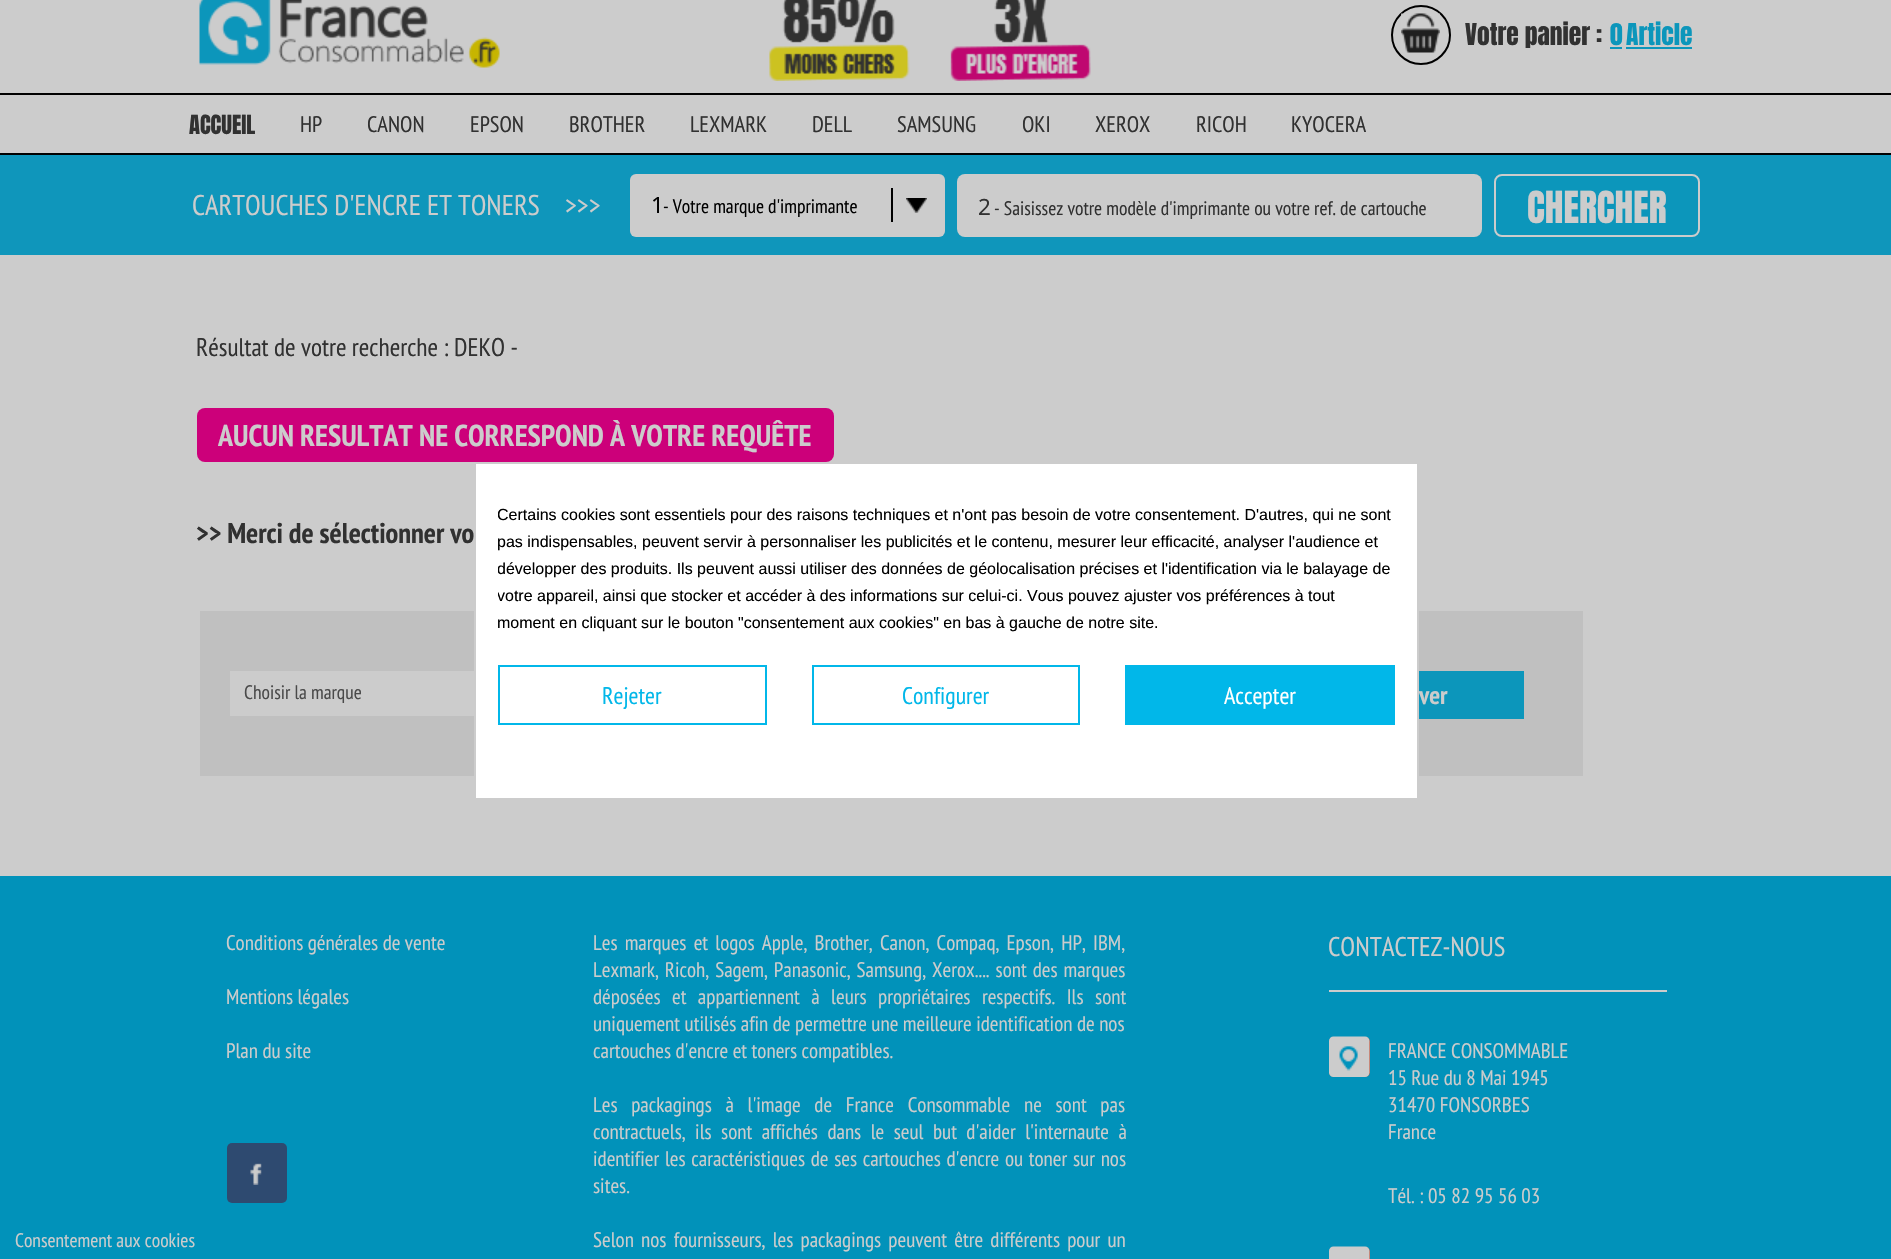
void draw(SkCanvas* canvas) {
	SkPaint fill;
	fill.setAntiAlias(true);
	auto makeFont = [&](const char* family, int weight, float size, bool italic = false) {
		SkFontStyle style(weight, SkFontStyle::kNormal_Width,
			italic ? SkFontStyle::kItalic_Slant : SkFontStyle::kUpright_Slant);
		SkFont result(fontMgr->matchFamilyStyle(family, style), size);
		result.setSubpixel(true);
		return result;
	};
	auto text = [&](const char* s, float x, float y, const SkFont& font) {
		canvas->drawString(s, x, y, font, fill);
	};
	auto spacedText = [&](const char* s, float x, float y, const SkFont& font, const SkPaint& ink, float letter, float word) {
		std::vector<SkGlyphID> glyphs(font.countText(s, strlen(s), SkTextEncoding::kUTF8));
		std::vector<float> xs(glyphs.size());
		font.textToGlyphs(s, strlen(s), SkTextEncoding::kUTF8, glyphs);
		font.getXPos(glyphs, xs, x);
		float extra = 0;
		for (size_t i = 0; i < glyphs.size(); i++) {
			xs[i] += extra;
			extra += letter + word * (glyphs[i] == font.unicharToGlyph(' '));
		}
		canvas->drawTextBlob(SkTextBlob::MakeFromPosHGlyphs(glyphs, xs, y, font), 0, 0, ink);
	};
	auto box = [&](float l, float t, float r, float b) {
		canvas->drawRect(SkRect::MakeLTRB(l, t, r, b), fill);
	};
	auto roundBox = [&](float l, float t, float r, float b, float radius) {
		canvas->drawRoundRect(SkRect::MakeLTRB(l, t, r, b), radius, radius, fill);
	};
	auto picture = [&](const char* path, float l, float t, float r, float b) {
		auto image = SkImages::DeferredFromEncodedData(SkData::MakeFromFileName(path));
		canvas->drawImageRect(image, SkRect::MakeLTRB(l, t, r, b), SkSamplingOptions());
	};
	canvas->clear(0xFFCCCCCC);
	picture("image0.png", 199, 0, 500, 68);
	picture("image1.png", 769, 0, 910, 81);
	picture("image2.png", 950, 0, 1091, 81);
	fill.setStyle(SkPaint::kStroke_Style);
	fill.setStrokeWidth(2);
	fill.setColor(0xFF000000);
	canvas->drawCircle(1421, 35, 29, fill);
	picture("image3.png", 1401, 13, 1440, 53);
	fill.setStyle(SkPaint::kFill_Style);
	fill.setColor(0xFF0C96BB);
	box(1610, 47, 1622, 49);
	box(1626, 47, 1692, 49);
	fill.setColor(0xFF000000);
	box(0, 93, 1891, 95);
	fill.setColor(0xFF0F96BB);
	box(0, 155, 1891, 255);
	fill.setColor(0xFF000000);
	box(0, 153, 1891, 155);
	fill.setColor(0xFFCCCCCC);
	roundBox(630, 174, 945, 237, 6);
	fill.setColor(0xFF000000);
	box(891, 188, 893, 222);
	picture("image4.png", 906, 198, 927, 213);
	fill.setColor(0xFFCCCCCC);
	roundBox(957, 174, 1482, 237, 8);
	fill.setColor(0xFF0C96BB);
	canvas->drawRoundRect(SkRect::MakeLTRB(1495, 175, 1699, 236), 7, 7, fill);
	fill.setStyle(SkPaint::kStroke_Style);
	fill.setColor(0xFFCCCCCC);
	canvas->drawRoundRect(SkRect::MakeLTRB(1495, 175, 1699, 236), 7, 7, fill);
	fill.setStyle(SkPaint::kFill_Style);
	fill.setColor(0xFFCC007A);
	roundBox(197, 408, 834, 462, 8);
	fill.setColor(0xFFC0C0C0);
	box(200, 611, 1583, 776);
	fill.setColor(0xFFCCCCCC);
	box(230, 671, 474, 716);
	fill.setColor(0xFF0C96BB);
	box(1419, 671, 1524, 719);
	fill.setColor(0xFF0192BA);
	box(0, 876, 1891, 1259);
	fill.setColor(0xFF2E4A70);
	roundBox(227, 1143, 287, 1203, 5);
	picture("image5.png", 250, 1163, 262, 1185);
	fill.setColor(0xFFCCCCCC);
	box(1329, 990, 1667, 992);
	fill.setColor(0xFFC24226);
	roundBox(1329, 1037, 1370, 1077, 5);
	picture("image6.png", 1329, 1036, 1370, 1077);
	roundBox(1329, 1247, 1370, 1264, 5);
	picture("image7.png", 1329, 1246, 1370, 1259);
	auto font1 = makeFont("Anton", 400, 25.5f);
	fill.setColor(0xFF313131);
	text("Votre panier :", 1465, 45, font1);
	fill.setColor(0xFF0C96BB);
	text("0", 1610, 45, font1);
	text("Article", 1626, 45, font1);
	auto font2 = makeFont("Anton", 400, 22.5f);
	fill.setColor(0xFF313131);
	text("ACCUEIL", 189, 134, font2);
	auto font3 = makeFont("PT Sans Narrow", 400, 22.5f);
	text("HP", 300, 132, font3);
	text("CANON", 367, 132, font3);
	text("EPSON", 470, 132, font3);
	text("BROTHER", 569, 132, font3);
	text("LEXMARK", 690, 132, font3);
	text("DELL", 812, 132, font3);
	text("SAMSUNG", 897, 132, font3);
	text("OKI", 1022, 132, font3);
	text("XEROX", 1095, 132, font3);
	text("RICOH", 1196, 132, font3);
	text("KYOCERA", 1291, 132, font3);
	auto font4 = makeFont("PT Sans Narrow", 400, 28.5f);
	fill.setColor(0xFFCCCCCC);
	text("CARTOUCHES D'ENCRE ET TONERS", 192, 215, font4);
	text(">>>", 565, 215, font4);
	auto font5 = makeFont("Noto Sans", 400, 22.5f);
	fill.setColor(0xFF000000);
	text("1", 651, 213, font5);
	auto font6 = makeFont("PT Sans Narrow", 400, 19.5f);
	text("- Votre marque d'imprimante", 663, 213, font6);
	fill.setColor(0xFF313131);
	text("2", 978, 215, font5);
	text("- Saisissez votre modèle d'imprimante ou votre ref. de cartouche", 994, 215, font6);
	auto font7 = makeFont("Anton", 400, 37.5f);
	fill.setColor(0xFFCCCCCC);
	text("CHERCHER", 1527, 223, font7);
	auto font8 = makeFont("PT Sans Narrow", 400, 25.5f);
	fill.setColor(0xFF313131);
	text("Résultat de votre recherche : DEKO -", 196, 356, font8);
	auto font9 = makeFont("PT Sans Narrow", 700, 30);
	fill.setColor(0xFFCCCCCC);
	text("AUCUN RESULTAT NE CORRESPOND À VOTRE REQUÊTE", 218, 446, font9);
	auto font10 = makeFont("PT Sans Narrow", 700, 28.5f);
	fill.setColor(0xFF313131);
	text(">> Merci de sélectionner vo", 196, 543, font10);
	fill.setColor(0xFF4A4A4A);
	text("Choisir la marque", 244, 699, font6);
	auto font11 = makeFont("PT Sans Narrow", 700, 25.5f);
	fill.setColor(0xFFCCCCCC);
	text("ver", 1419, 704, font11);
	auto font12 = makeFont("PT Sans Narrow", 400, 21);
	text("Conditions générales de vente", 226, 950, font12);
	text("Mentions légales", 226, 1004, font12);
	text("Plan du site", 226, 1058, font12);
	spacedText("Les marques et logos Apple, Brother, Canon, Compaq, Epson, HP, IBM,", 593, 950, font12, fill, 0, 2.75f);
	spacedText("Lexmark, Ricoh, Sagem, Panasonic, Samsung, Xerox.... sont des marques", 593, 977, font12, fill, 0, 1.5f);
	spacedText("déposées et appartiennent à leurs propriétaires respectifs. Ils sont", 593, 1004, font12, fill, 0, 7);
	text("uniquement utilisés afin de permettre une meilleure identification de nos", 593, 1031, font12);
	text("cartouches d'encre et toners compatibles.", 593, 1058, font12);
	spacedText("Les packagings à l'image de France Consommable ne sont pas", 593, 1112, font12, fill, 0, 9.25f);
	spacedText("contractuels, ils sont affichés dans le seul but d'aider l'internaute à", 593, 1139, font12, fill, 0, 5);
	spacedText("identifier les caractéristiques de ses cartouches d'encre ou toner sur nos", 593, 1166, font12, fill, 0, 1.25f);
	text("sites.", 593, 1193, font12);
	spacedText("Selon nos fournisseurs, les packagings peuvent être différents pour un", 593, 1247, font12, fill, 0, 2.75f);
	auto font13 = makeFont("PT Sans Narrow", 400, 27);
	text("CONTACTEZ-NOUS", 1328, 956, font13);
	text("FRANCE CONSOMMABLE", 1388, 1058, font12);
	text("15 Rue du 8 Mai 1945", 1388, 1085, font12);
	text("31470 FONSORBES", 1388, 1112, font12);
	text("France", 1388, 1139, font12);
	text("Tél. : 05 82 95 56 03", 1388, 1203, font12);
	fill.setColor(0xFFFFFFFF);
	canvas->drawRect(SkRect::MakeLTRB(475, 463, 1418, 799), fill);
	fill.setStyle(SkPaint::kStroke_Style);
	fill.setColor(0xFFCCCCCC);
	canvas->drawRect(SkRect::MakeLTRB(475, 463, 1418, 799), fill);
	canvas->save();
	canvas->clipRect(SkRect::MakeLTRB(498, 500, 1395, 635));
	auto font14 = makeFont("Liberation Sans", 400, 16);
	fill.setStyle(SkPaint::kFill_Style);
	fill.setColor(0xFF000000);
	text("Certains cookies sont essentiels pour des raisons techniques et n'ont pas besoin de votre consentement. D'autres, qui ne sont", 497, 520, font14);
	canvas->restore();
	text("pas indispensables, peuvent servir à personnaliser les publicités et le contenu, mesurer leur efficacité, analyser l'audience et", 497, 547, font14);
	canvas->save();
	canvas->clipRect(SkRect::MakeLTRB(498, 500, 1395, 635));
	text("développer des produits. Ils peuvent aussi utiliser des données de géolocalisation précises et l'identification via le balayage de", 497, 574, font14);
	text("votre appareil, ainsi que stocker et accéder à des informations sur celui-ci. Vous pouvez ajuster vos préférences à tout", 497, 601, font14);
	canvas->restore();
	text("moment en cliquant sur le bouton \"consentement aux cookies\" en bas à gauche de notre site.", 497, 628, font14);
	fill.setStyle(SkPaint::kStroke_Style);
	fill.setColor(0xFF01B7E9);
	canvas->drawRect(SkRect::MakeLTRB(499, 666, 766, 724), fill);
	auto font15 = makeFont("PT Sans Narrow", 400, 24);
	fill.setStyle(SkPaint::kFill_Style);
	text("Rejeter", 602, 704, font15);
	fill.setStyle(SkPaint::kStroke_Style);
	canvas->drawRect(SkRect::MakeLTRB(813, 666, 1079, 724), fill);
	fill.setStyle(SkPaint::kFill_Style);
	text("Configurer", 902, 704, font15);
	box(1125, 665, 1395, 725);
	fill.setColor(0xFFFFFFFF);
	text("Accepter", 1224, 704, font15);
	fill.setColor(0xFFCCCCCC);
	text("Consentement aux cookies", 15, 1247, font6);
}
